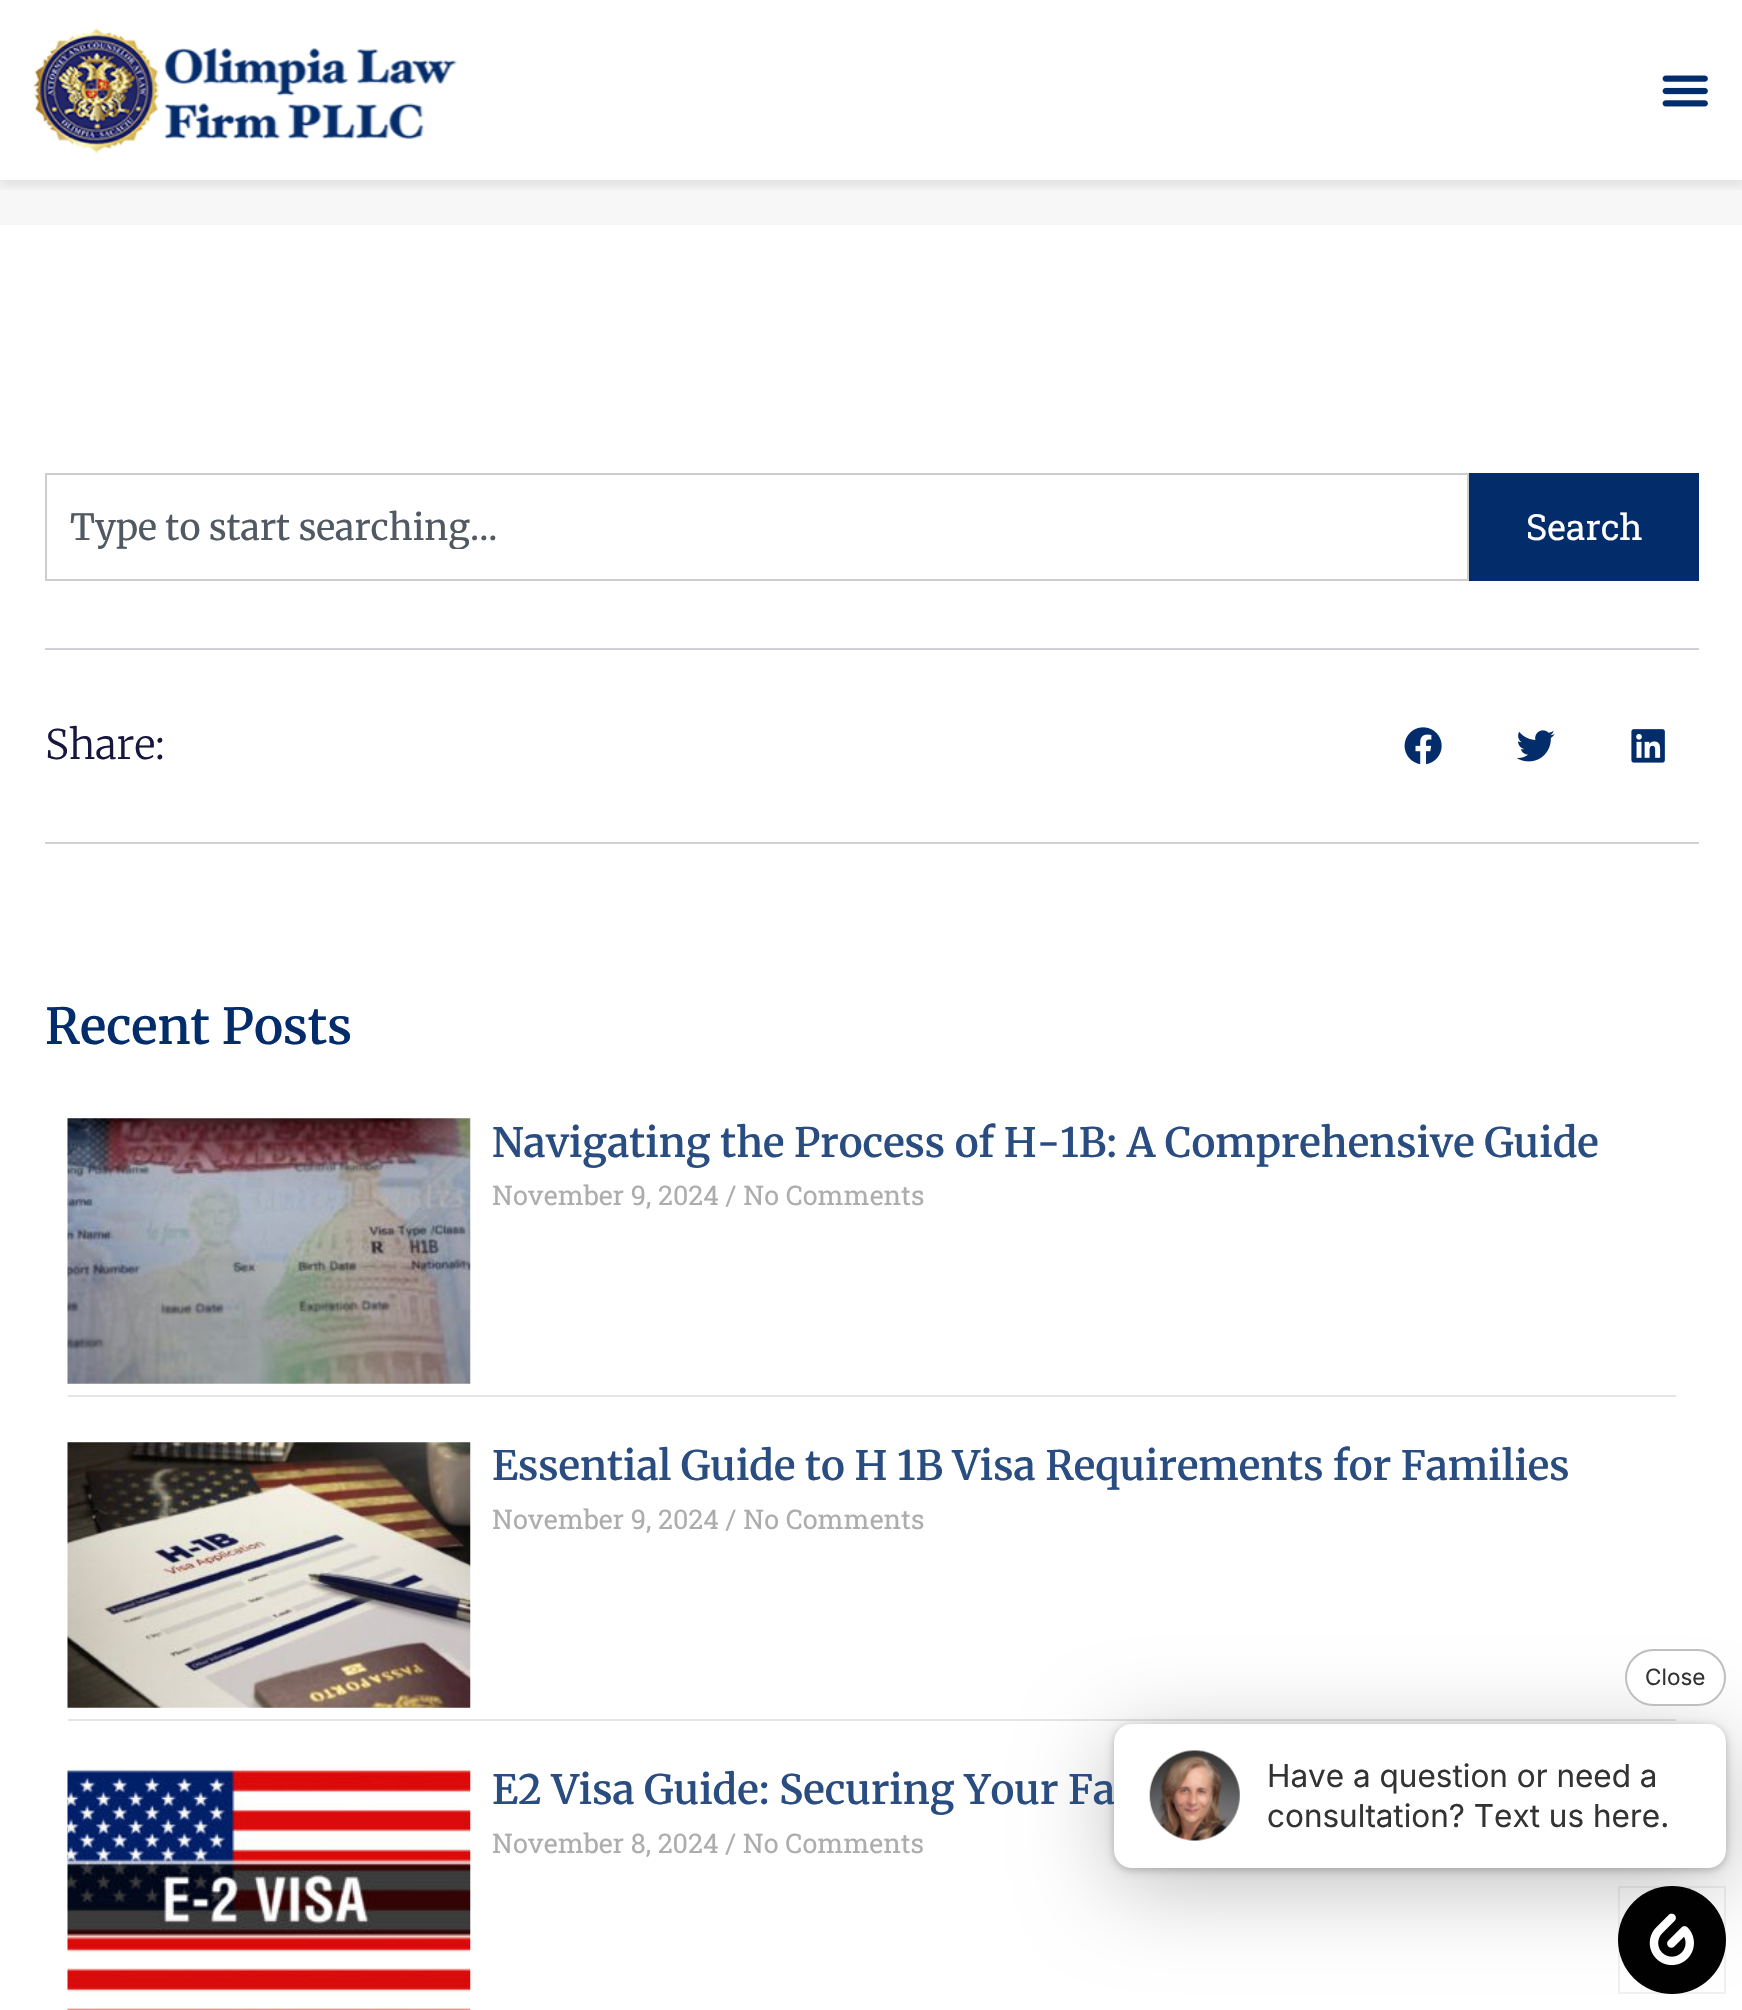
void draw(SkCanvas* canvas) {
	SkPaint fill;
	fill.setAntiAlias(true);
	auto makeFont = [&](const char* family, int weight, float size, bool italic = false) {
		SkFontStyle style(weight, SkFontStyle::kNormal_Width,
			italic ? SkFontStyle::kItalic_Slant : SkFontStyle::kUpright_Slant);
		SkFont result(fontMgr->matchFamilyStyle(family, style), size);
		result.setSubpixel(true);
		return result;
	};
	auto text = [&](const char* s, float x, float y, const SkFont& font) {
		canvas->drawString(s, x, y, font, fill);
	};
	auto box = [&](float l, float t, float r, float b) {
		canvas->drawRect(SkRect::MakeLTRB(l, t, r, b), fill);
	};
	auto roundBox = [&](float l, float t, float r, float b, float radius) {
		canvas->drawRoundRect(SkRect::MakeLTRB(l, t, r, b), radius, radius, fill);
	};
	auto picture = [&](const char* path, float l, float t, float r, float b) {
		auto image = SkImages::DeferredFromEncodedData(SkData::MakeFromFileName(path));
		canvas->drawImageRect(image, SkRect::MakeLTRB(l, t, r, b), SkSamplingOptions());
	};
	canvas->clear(0xFFFFFFFF);
	fill.setColor(0xFFF7F7F7);
	box(0, 180, 1742, 225);
	canvas->save();
	canvas->clipRect(SkRect::MakeLTRB(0, 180, 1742, 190));
	fill.setColor(0x1A000000);
	fill.setMaskFilter(SkMaskFilter::MakeBlur(kNormal_SkBlurStyle, 5.5f));
	canvas->drawRect(SkRect::MakeLTRB(0, 5, 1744, 185), fill);
	fill.setMaskFilter(nullptr);
	canvas->restore();
	picture("image0.png", 33, 27, 458, 154);
	picture("image1.png", 1662, 75, 1708, 107);
	fill.setStyle(SkPaint::kStroke_Style);
	fill.setStrokeWidth(2);
	fill.setColor(0xFFCDCDCD);
	canvas->drawRect(SkRect::MakeLTRB(46, 474, 1468, 580), fill);
	fill.setStyle(SkPaint::kFill_Style);
	fill.setColor(0xFF032C6B);
	box(1469, 473, 1699, 581);
	fill.setColor(0xFFD0D0D9);
	box(45, 648, 1699, 650);
	box(45, 842, 1699, 844);
	picture("image2.png", 1404, 727, 1442, 765);
	picture("image3.png", 1517, 730, 1555, 762);
	picture("image4.png", 1631, 729, 1665, 763);
	fill.setColor(0xFFE5E5E5);
	box(68, 1395, 1676, 1397);
	picture("image5.png", 67, 1118, 471, 1384);
	box(68, 1719, 1676, 1721);
	picture("image6.png", 67, 1442, 471, 1708);
	picture("image7.png", 67, 1766, 471, 2010);
	fill.setColor(0x40010101);
	fill.setMaskFilter(SkMaskFilter::MakeBlur(kNormal_SkBlurStyle, 45));
	canvas->drawRoundRect(SkRect::MakeLTRB(1114, 1742, 1726, 1886), 18, 18, fill);
	fill.setMaskFilter(nullptr);
	fill.setColor(0xFFFFFFFF);
	roundBox(1625, 1649, 1726, 1706, 28.5f);
	fill.setStyle(SkPaint::kStroke_Style);
	fill.setColor(0x40010101);
	canvas->drawRoundRect(SkRect::MakeLTRB(1626, 1650, 1725, 1705), 27.5f, 27.5f, fill);
	fill.setStyle(SkPaint::kFill_Style);
	fill.setMaskFilter(SkMaskFilter::MakeBlur(kNormal_SkBlurStyle, 4.5f));
	canvas->drawRoundRect(SkRect::MakeLTRB(1114, 1726, 1726, 1870), 18, 18, fill);
	fill.setMaskFilter(nullptr);
	fill.setColor(0xFF010101);
	canvas->drawCircle(1672, 1940, 54, fill);
	fill.setStyle(SkPaint::kStroke_Style);
	fill.setColor(0x0F000000);
	canvas->drawRect(SkRect::MakeLTRB(1619, 1887, 1725, 1993), fill);
	picture("image9.png", 1649, 1913, 1694, 1966);
	canvas->save();
	canvas->clipRect(SkRect::MakeLTRB(70, 504, 1440, 549));
	auto font1 = makeFont("Merriweather", 400, 36);
	fill.setStyle(SkPaint::kFill_Style);
	fill.setColor(0xFF515962);
	text("Type to start searching...", 70, 540, font1);
	canvas->restore();
	auto font2 = makeFont("Roboto Slab", 400, 36);
	fill.setColor(0xFFFFFFFF);
	text("Search", 1526, 540, font2);
	auto font3 = makeFont("Merriweather", 300, 40.5f);
	fill.setColor(0xFF16163F);
	text("Share:", 45, 759, font3);
	auto font4 = makeFont("Merriweather", 600, 49.5f);
	fill.setColor(0xFF032C6B);
	text("Recent Posts", 45, 1044, font4);
	auto font5 = makeFont("Merriweather", 600, 40.5f);
	fill.setColor(0xFF294C81);
	text("Navigating the Process of H-1B: A Comprehensive Guide", 492, 1157, font5);
	auto font6 = makeFont("Roboto Slab", 400, 27);
	fill.setColor(0xFFADADAD);
	text("November 9, 2024 / No Comments", 492, 1205, font6);
	fill.setColor(0xFF294C81);
	text("Essential Guide to H 1B Visa Requirements for Families", 492, 1480, font5);
	fill.setColor(0xFFADADAD);
	text("November 9, 2024 / No Comments", 492, 1529, font6);
	fill.setColor(0xFF294C81);
	text("E2 Visa Guide: Securing Your Fa", 492, 1804, font5);
	fill.setColor(0xFFADADAD);
	text("November 8, 2024 / No Comments", 492, 1853, font6);
	auto font7 = makeFont("Inter", 400, 22.5f);
	fill.setColor(0xFF333333);
	text("Close", 1645, 1685, font7);
	fill.setColor(0xFFFFFFFF);
	roundBox(1114, 1724, 1726, 1868, 18);
	fill.setColor(0xFFF2F2F2);
	canvas->drawCircle(1195, 1796, 45, fill);
	picture("image8.png", 1149, 1750, 1240, 1841);
	auto font8 = makeFont("Inter", 400, 31.5f);
	fill.setColor(0xFF333333);
	text("Have a question or need a", 1267, 1787, font8);
	text("consultation? Text us here.", 1267, 1827, font8);
}
